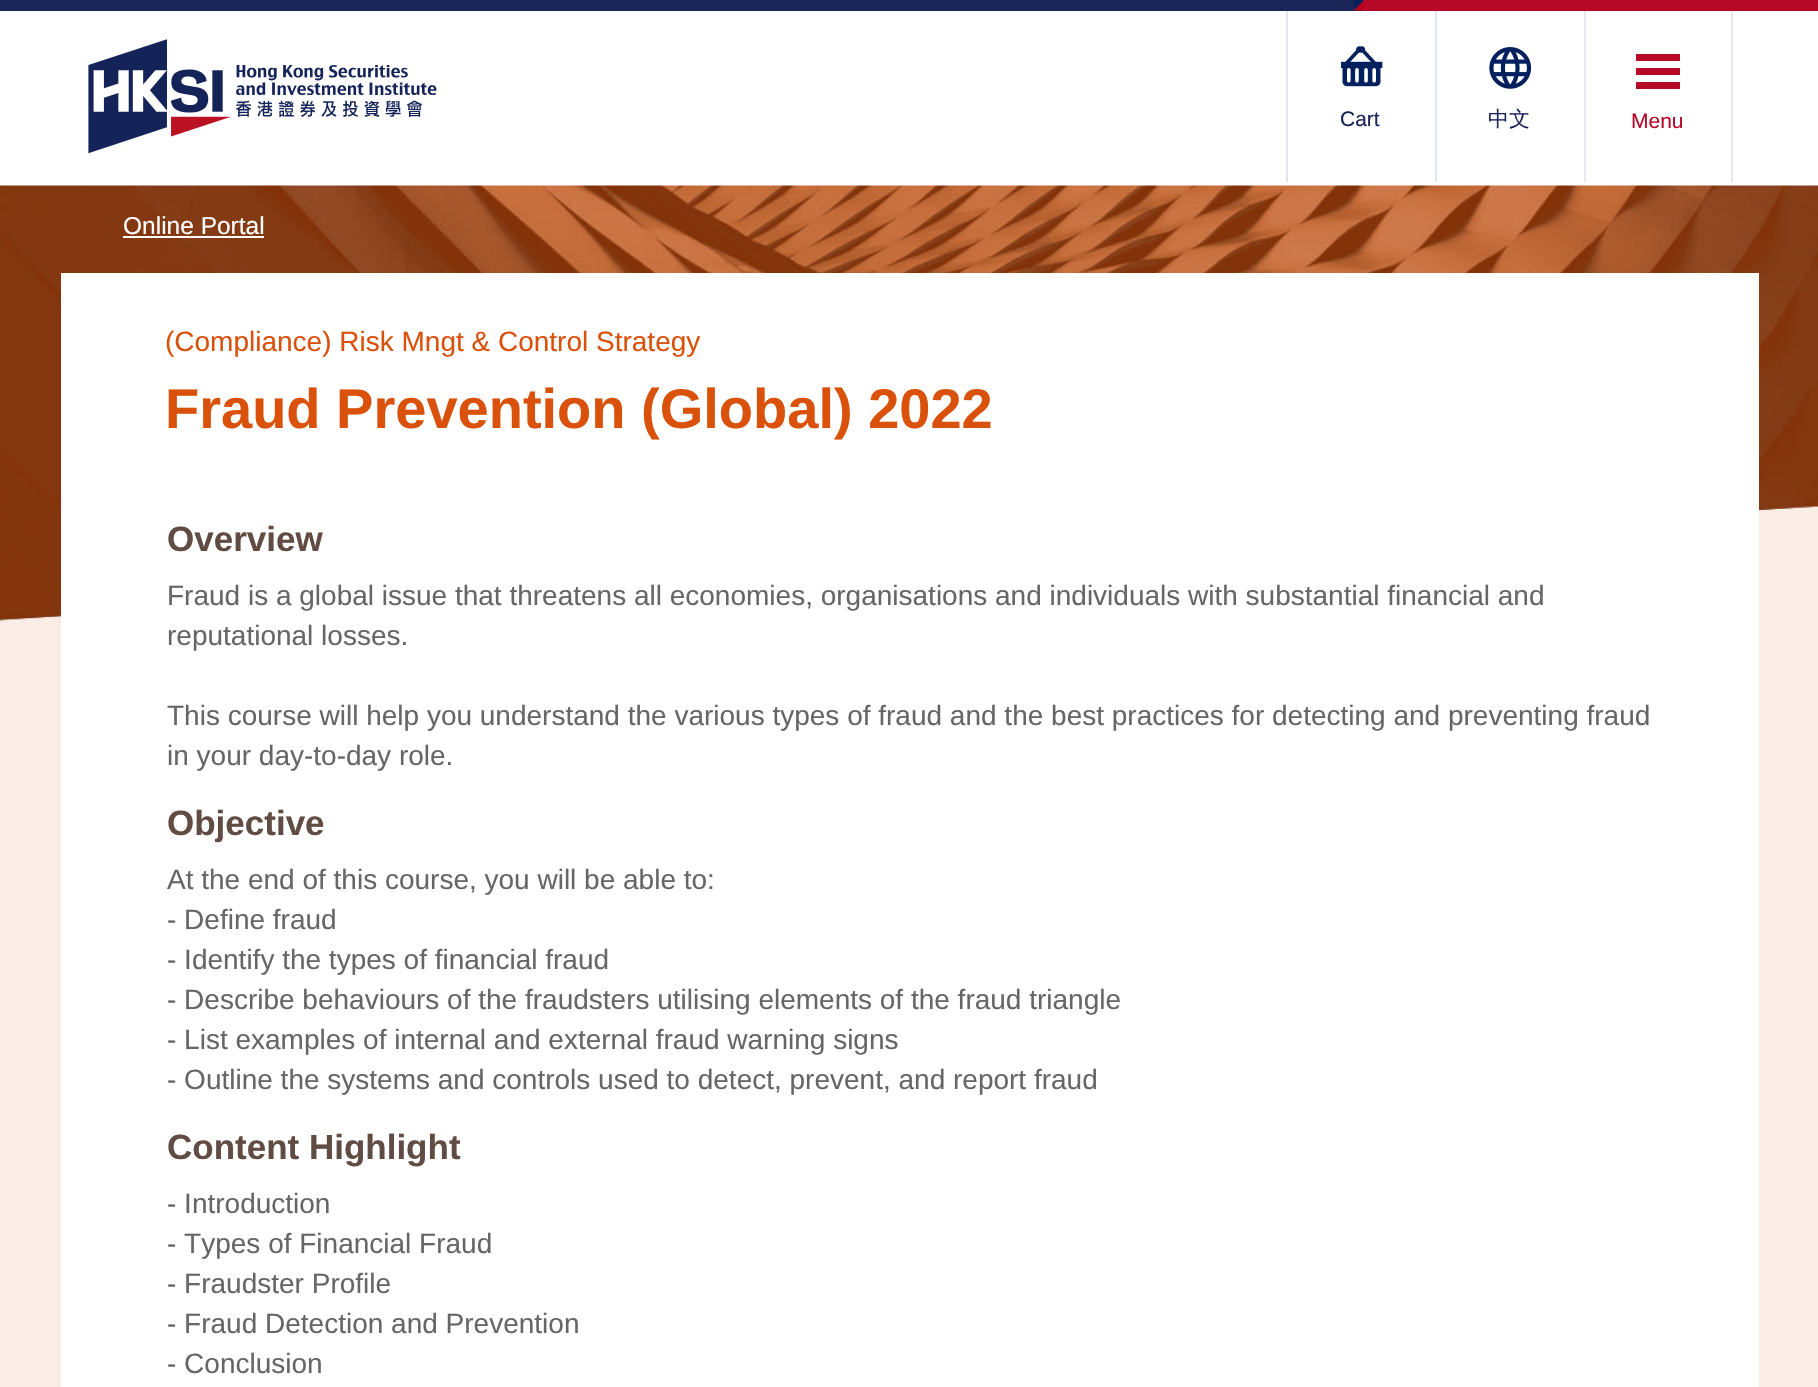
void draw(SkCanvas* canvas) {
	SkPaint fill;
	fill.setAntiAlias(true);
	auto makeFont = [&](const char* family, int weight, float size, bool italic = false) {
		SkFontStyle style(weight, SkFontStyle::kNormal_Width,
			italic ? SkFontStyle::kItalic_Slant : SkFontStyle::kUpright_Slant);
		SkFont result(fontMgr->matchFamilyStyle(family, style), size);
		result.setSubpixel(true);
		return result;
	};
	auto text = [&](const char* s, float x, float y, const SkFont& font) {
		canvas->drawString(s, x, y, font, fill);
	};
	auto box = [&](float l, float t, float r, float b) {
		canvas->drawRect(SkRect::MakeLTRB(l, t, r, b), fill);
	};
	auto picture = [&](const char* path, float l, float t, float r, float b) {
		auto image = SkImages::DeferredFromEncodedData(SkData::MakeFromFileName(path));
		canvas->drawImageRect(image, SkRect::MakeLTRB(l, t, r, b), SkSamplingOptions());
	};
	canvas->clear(0xFFFFFFFF);
	fill.setColor(0xFF192457);
	box(0, 0, 1363, 11);
	fill.setColor(0xFFB60827);
	box(1363, 0, 1818, 11);
	picture("image0.png", 1354, 0, 1364, 11);
	picture("image1.png", 88, 39, 437, 154);
	fill.setColor(0xFFDFE6ED);
	box(1286, 11, 1288, 182);
	picture("image2.png", 1341, 46, 1383, 87);
	box(1435, 11, 1437, 182);
	picture("image3.png", 1489, 47, 1531, 89);
	fill.setColor(0xFFE7E9EE);
	box(1731, 11, 1733, 182);
	box(1584, 11, 1586, 182);
	fill.setColor(0xFFB60827);
	box(1636, 54, 1680, 61);
	box(1636, 68, 1680, 75);
	box(1636, 82, 1680, 89);
	picture("image4.png", 0, 185, 1818, 623);
	fill.setColor(0xFFFFFFFF);
	box(123, 236, 264, 238);
	fill.setColor(0xFFFBEDE6);
	box(0, 623, 1818, 1387);
	fill.setColor(0xFFFFFFFF);
	box(61, 273, 1759, 1387);
	auto font1 = makeFont("Liberation Sans", 400, 21);
	fill.setColor(0xFF192457);
	text("Cart", 1340, 126, font1);
	auto font2 = makeFont("WenQuanYi Zen Hei", 500, 21);
	text("中文", 1488, 126, font2);
	fill.setColor(0xFFB60827);
	text("Menu", 1631, 128, font1);
	auto font3 = makeFont("Liberation Sans", 400, 24.5f);
	fill.setColor(0xFFFFFFFF);
	text("Online Portal", 123, 234, font3);
	auto font4 = makeFont("Liberation Sans", 400, 28);
	fill.setColor(0xFFD9510A);
	text("(Compliance) Risk Mngt & Control Strategy", 165, 351, font4);
	auto font5 = makeFont("Liberation Sans", 700, 56);
	text("Fraud Prevention (Global) 2022", 165, 428, font5);
	auto font6 = makeFont("Liberation Sans", 700, 35);
	fill.setColor(0xFF604C42);
	text("Overview", 167, 551, font6);
	fill.setColor(0xFF666666);
	text("Fraud is a global issue that threatens all economies, organisations and individuals with substantial financial and", 167, 605, font4);
	text("reputational losses.", 167, 645, font4);
	text("This course will help you understand the various types of fraud and the best practices for detecting and preventing fraud", 167, 725, font4);
	text("in your day-to-day role.", 167, 765, font4);
	fill.setColor(0xFF604C42);
	text("Objective", 167, 835, font6);
	fill.setColor(0xFF666666);
	text("At the end of this course, you will be able to:", 167, 889, font4);
	text("- Define fraud", 167, 929, font4);
	text("- Identify the types of financial fraud", 167, 969, font4);
	text("- Describe behaviours of the fraudsters utilising elements of the fraud triangle", 167, 1009, font4);
	text("- List examples of internal and external fraud warning signs", 167, 1049, font4);
	text("- Outline the systems and controls used to detect, prevent, and report fraud", 167, 1089, font4);
	fill.setColor(0xFF604C42);
	text("Content Highlight", 167, 1159, font6);
	fill.setColor(0xFF666666);
	text("- Introduction", 167, 1213, font4);
	text("- Types of Financial Fraud", 167, 1253, font4);
	text("- Fraudster Profile", 167, 1293, font4);
	text("- Fraud Detection and Prevention", 167, 1333, font4);
	text("- Conclusion", 167, 1373, font4);
}
